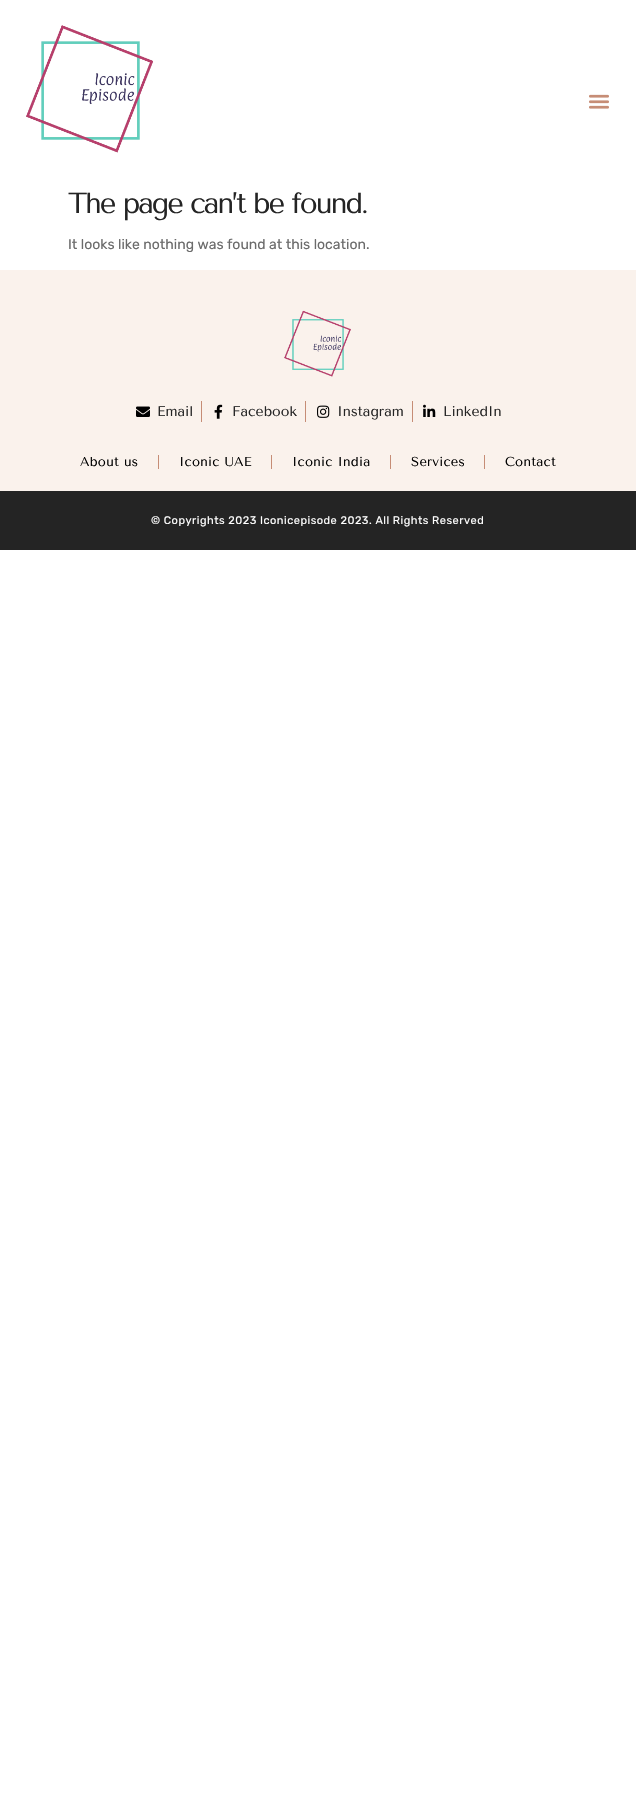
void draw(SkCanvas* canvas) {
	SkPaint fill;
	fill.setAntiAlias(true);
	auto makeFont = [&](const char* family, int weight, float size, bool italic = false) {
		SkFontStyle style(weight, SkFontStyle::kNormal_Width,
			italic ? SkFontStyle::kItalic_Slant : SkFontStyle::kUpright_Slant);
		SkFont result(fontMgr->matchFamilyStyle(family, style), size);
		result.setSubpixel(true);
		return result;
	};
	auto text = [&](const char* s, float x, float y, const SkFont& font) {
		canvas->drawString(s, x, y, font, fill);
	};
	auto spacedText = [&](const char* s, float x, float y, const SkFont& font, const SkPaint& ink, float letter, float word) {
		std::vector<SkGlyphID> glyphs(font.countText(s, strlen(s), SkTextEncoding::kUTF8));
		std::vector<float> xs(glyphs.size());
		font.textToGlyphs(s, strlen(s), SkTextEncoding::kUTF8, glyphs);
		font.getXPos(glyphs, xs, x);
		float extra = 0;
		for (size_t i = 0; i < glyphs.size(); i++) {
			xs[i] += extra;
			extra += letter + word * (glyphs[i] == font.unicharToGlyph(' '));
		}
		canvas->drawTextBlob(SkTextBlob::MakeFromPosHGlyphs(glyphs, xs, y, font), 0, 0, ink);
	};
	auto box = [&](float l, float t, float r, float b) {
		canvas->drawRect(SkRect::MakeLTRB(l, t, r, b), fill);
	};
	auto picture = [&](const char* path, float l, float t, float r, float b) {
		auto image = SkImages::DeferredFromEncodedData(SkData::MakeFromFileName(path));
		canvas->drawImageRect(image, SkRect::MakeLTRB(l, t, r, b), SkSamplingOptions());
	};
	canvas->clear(0xFFFFFFFF);
	picture("image0.png", 26, 25, 153, 153);
	picture("image1.png", 589, 94, 609, 109);
	fill.setColor(0xFFFAF2EC);
	box(0, 270, 636, 491);
	picture("image2.png", 284, 310, 351, 377);
	picture("image3.png", 136, 406, 150, 417);
	fill.setColor(0xFFC68D76);
	box(201, 401, 202, 422);
	picture("image4.png", 214, 404, 223, 419);
	box(305, 401, 306, 422);
	picture("image5.png", 317, 405, 330, 418);
	box(412, 401, 413, 422);
	picture("image6.png", 423, 404, 436, 417);
	box(158, 455, 159, 469);
	box(271, 455, 272, 469);
	box(390, 455, 391, 469);
	box(484, 455, 485, 469);
	fill.setColor(0xFF242424);
	box(0, 491, 636, 550);
	auto font1 = makeFont("Tenor Sans", 400, 29);
	spacedText("The page can’t be found.", 68, 213, font1, fill, -2, 0);
	auto font2 = makeFont("Rubik", 400, 14);
	fill.setColor(0xFF6B6B6B);
	text("It looks like nothing was found at this location.", 68, 249, font2);
	auto font3 = makeFont("Tenor Sans", 400, 14);
	fill.setColor(0xFF242424);
	text("Email", 157, 416, font3);
	text("Facebook", 232, 416, font3);
	text("Instagram", 337, 416, font3);
	text("LinkedIn", 443, 416, font3);
	auto font4 = makeFont("Tenor Sans", 400, 13);
	fill.setColor(0xFF000000);
	spacedText("About us", 80, 466, font4, fill, 0.25f, 0);
	spacedText("Iconic UAE", 179, 466, font4, fill, 0.25f, 0);
	spacedText("Iconic India", 292, 466, font4, fill, 0.25f, 0);
	spacedText("Services", 411, 466, font4, fill, 0.25f, 0);
	spacedText("Contact", 505, 466, font4, fill, 0.25f, 0);
	auto font5 = makeFont("Rubik", 400, 11);
	fill.setColor(0xFFFFFFFF);
	spacedText("© Copyrights 2023 Iconicepisode 2023. All Rights Reserved", 151, 524, font5, fill, 0.5f, 0);
}
